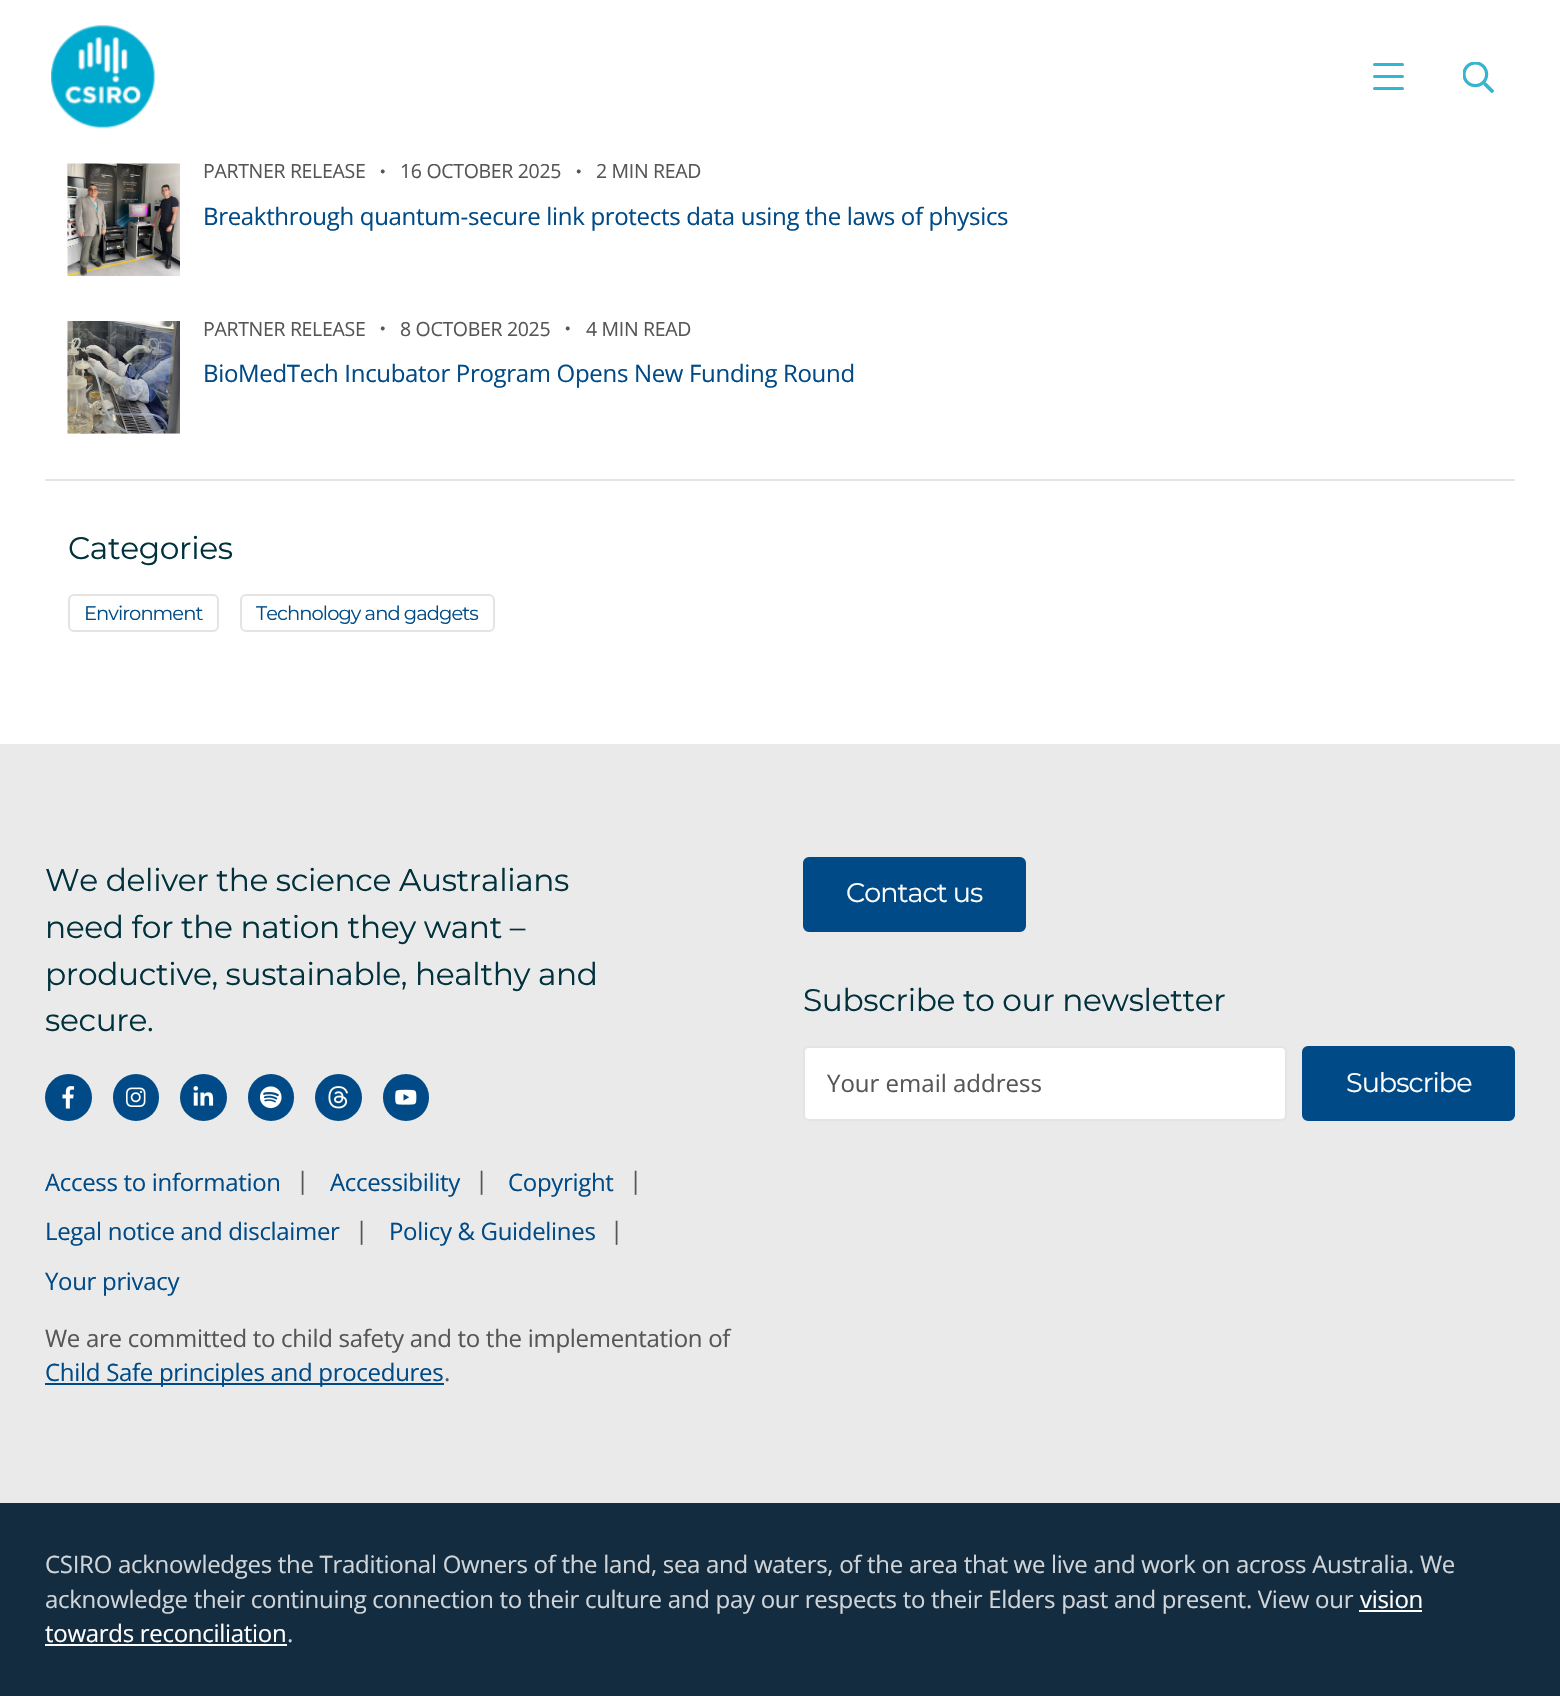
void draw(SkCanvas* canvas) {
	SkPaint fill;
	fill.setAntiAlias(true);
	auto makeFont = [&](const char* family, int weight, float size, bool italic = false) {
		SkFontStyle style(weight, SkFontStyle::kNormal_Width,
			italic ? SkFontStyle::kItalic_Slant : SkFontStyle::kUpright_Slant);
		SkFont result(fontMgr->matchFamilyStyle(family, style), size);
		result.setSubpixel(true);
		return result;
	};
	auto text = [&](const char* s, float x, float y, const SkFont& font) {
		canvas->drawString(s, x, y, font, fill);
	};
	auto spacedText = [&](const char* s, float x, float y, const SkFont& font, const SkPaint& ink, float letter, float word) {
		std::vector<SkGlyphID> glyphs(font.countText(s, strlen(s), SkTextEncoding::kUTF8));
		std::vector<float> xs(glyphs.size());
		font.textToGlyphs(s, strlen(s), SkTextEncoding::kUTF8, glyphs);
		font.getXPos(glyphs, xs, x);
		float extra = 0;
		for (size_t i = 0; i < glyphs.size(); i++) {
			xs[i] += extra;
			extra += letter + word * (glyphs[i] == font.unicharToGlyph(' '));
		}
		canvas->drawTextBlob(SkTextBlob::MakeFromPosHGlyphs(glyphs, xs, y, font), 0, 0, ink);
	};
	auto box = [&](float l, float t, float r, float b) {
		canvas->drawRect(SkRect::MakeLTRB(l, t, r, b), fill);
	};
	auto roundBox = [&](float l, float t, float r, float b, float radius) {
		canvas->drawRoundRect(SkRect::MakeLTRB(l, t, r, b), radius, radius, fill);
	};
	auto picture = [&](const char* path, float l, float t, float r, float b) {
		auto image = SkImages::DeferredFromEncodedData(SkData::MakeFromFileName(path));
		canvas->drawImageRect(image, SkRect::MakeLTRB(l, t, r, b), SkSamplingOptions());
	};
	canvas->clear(0xFFFFFFFF);
	picture("image0.png", 51, 25, 155, 129);
	fill.setColor(0xFF30B7D4);
	roundBox(1373, 75, 1404, 78, 1.5f);
	roundBox(1373, 63, 1404, 66, 1.5f);
	roundBox(1373, 87, 1404, 90, 1.5f);
	picture("image1.png", 1463, 62, 1494, 93);
	picture("image2.png", 67, 163, 180, 276);
	fill.setColor(0xFFF5F5F5);
	box(68, 433, 180, 434);
	picture("image3.png", 67, 321, 180, 434);
	fill.setColor(0xFFE4E4E4);
	box(45, 479, 1515, 481);
	fill.setStyle(SkPaint::kStroke_Style);
	fill.setStrokeWidth(2);
	canvas->drawRoundRect(SkRect::MakeLTRB(69, 595, 218, 631), 5, 5, fill);
	canvas->drawRoundRect(SkRect::MakeLTRB(241, 595, 494, 631), 5, 5, fill);
	fill.setStyle(SkPaint::kFill_Style);
	fill.setColor(0xFFEAEAEA);
	box(0, 744, 1560, 1503);
	fill.setColor(0xFF004B87);
	canvas->drawCircle(68.5f, 1097.5f, 23.5f, fill);
	picture("image4.png", 62, 1086, 75, 1109);
	roundBox(113, 1074, 159, 1121, 23);
	picture("image5.png", 125, 1087, 146, 1108);
	canvas->drawCircle(203.5f, 1097.5f, 23.5f, fill);
	picture("image6.png", 193, 1086, 214, 1106);
	roundBox(248, 1074, 294, 1121, 23);
	picture("image7.png", 260, 1086, 282, 1109);
	canvas->drawCircle(338.5f, 1097.5f, 23.5f, fill);
	picture("image8.png", 328, 1086, 348, 1109);
	roundBox(383, 1074, 429, 1121, 23);
	picture("image9.png", 395, 1089, 417, 1105);
	box(45, 1383, 444, 1385);
	canvas->drawRoundRect(SkRect::MakeLTRB(804, 858, 1025, 931), 5, 5, fill);
	fill.setStyle(SkPaint::kStroke_Style);
	canvas->drawRoundRect(SkRect::MakeLTRB(804, 858, 1025, 931), 5, 5, fill);
	fill.setStyle(SkPaint::kFill_Style);
	fill.setColor(0xFFFFFFFF);
	canvas->drawRoundRect(SkRect::MakeLTRB(804, 1047, 1286, 1120), 5, 5, fill);
	fill.setStyle(SkPaint::kStroke_Style);
	fill.setColor(0xFFE4E4E4);
	canvas->drawRoundRect(SkRect::MakeLTRB(804, 1047, 1286, 1120), 5, 5, fill);
	fill.setStyle(SkPaint::kFill_Style);
	fill.setColor(0xFF004B87);
	canvas->drawRoundRect(SkRect::MakeLTRB(1303, 1047, 1514, 1120), 5, 5, fill);
	fill.setStyle(SkPaint::kStroke_Style);
	canvas->drawRoundRect(SkRect::MakeLTRB(1303, 1047, 1514, 1120), 5, 5, fill);
	fill.setStyle(SkPaint::kFill_Style);
	fill.setColor(0xFF142C3F);
	box(0, 1503, 1560, 1696);
	fill.setColor(0xFFFFFFFF);
	box(1359, 1610, 1422, 1612);
	box(45, 1644, 287, 1646);
	auto font1 = makeFont("Open Sans", 400, 19.5f);
	fill.setColor(0xFF555658);
	spacedText("PARTNER RELEASE", 203, 178, font1, fill, -0.32f, 0);
	auto font2 = makeFont("Liberation Sans", 400, 9);
	spacedText("●", 380, 174, font2, fill, -0.32f, 0);
	canvas->save();
	canvas->clipRect(SkRect::MakeLTRB(68, 164, 1515, 276));
	spacedText("16 OCTOBER 2025", 400, 178, font1, fill, -0.32f, 0);
	canvas->restore();
	spacedText("●", 576, 174, font2, fill, -0.32f, 0);
	spacedText("2 MIN READ", 596, 178, font1, fill, -0.32f, 0);
	auto font3 = makeFont("Open Sans", 400, 24);
	fill.setColor(0xFF004B87);
	spacedText("Breakthrough quantum-secure link protects data using the laws of physics", 203, 225, font3, fill, -0.32f, 0);
	fill.setColor(0xFF555658);
	spacedText("PARTNER RELEASE", 203, 336, font1, fill, -0.32f, 0);
	spacedText("●", 380, 331, font2, fill, -0.32f, 0);
	spacedText("8 OCTOBER 2025", 400, 336, font1, fill, -0.32f, 0);
	spacedText("●", 565, 331, font2, fill, -0.32f, 0);
	spacedText("4 MIN READ", 586, 336, font1, fill, -0.32f, 0);
	fill.setColor(0xFF004B87);
	spacedText("BioMedTech Incubator Program Opens New Funding Round", 203, 382, font3, fill, -0.32f, 0);
	auto font4 = makeFont("Montserrat", 400, 31.25f);
	fill.setColor(0xFF00313C);
	spacedText("Categories", 68, 559, font4, fill, -0.35f, 0);
	auto font5 = makeFont("Montserrat", 400, 19.5f);
	fill.setColor(0xFF004B87);
	spacedText("Environment", 84, 620, font5, fill, -0.95f, 0);
	spacedText("Technology and gadgets", 256, 620, font5, fill, -0.95f, 0);
	fill.setColor(0xFF00313C);
	spacedText("We deliver the science Australians", 45, 891, font4, fill, -0.35f, 0);
	spacedText("need for the nation they want –", 45, 938, font4, fill, -0.35f, 0);
	spacedText("productive, sustainable, healthy and", 45, 985, font4, fill, -0.35f, 0);
	spacedText("secure.", 45, 1031, font4, fill, -0.35f, 0);
	fill.setColor(0xFF004B87);
	spacedText("Access to information", 45, 1191, font3, fill, -0.32f, 0);
	fill.setColor(0xFF555658);
	spacedText("|", 296, 1189, font3, fill, -0.32f, 0);
	fill.setColor(0xFF004B87);
	spacedText("Accessibility", 330, 1191, font3, fill, -0.32f, 0);
	fill.setColor(0xFF555658);
	spacedText("|", 475, 1189, font3, fill, -0.32f, 0);
	fill.setColor(0xFF004B87);
	spacedText("Copyright", 508, 1191, font3, fill, -0.32f, 0);
	fill.setColor(0xFF555658);
	spacedText("|", 629, 1189, font3, fill, -0.32f, 0);
	fill.setColor(0xFF004B87);
	spacedText("Legal notice and disclaimer", 45, 1240, font3, fill, -0.32f, 0);
	fill.setColor(0xFF555658);
	spacedText("|", 355, 1239, font3, fill, -0.32f, 0);
	fill.setColor(0xFF004B87);
	spacedText("Policy & Guidelines", 389, 1240, font3, fill, -0.32f, 0);
	fill.setColor(0xFF555658);
	spacedText("|", 610, 1239, font3, fill, -0.32f, 0);
	fill.setColor(0xFF004B87);
	spacedText("Your privacy", 45, 1290, font3, fill, -0.32f, 0);
	fill.setColor(0xFF555658);
	spacedText("We are committed to child safety and to the implementation of", 45, 1347, font3, fill, -0.29f, 0);
	fill.setColor(0xFF004B87);
	spacedText("Child Safe principles and procedures", 45, 1381, font3, fill, -0.29f, 0);
	fill.setColor(0xFF555658);
	spacedText(".", 444, 1381, font3, fill, -0.29f, 0);
	auto font6 = makeFont("Montserrat", 400, 27);
	fill.setColor(0xFFFFFFFF);
	spacedText("Contact us", 846, 902, font6, fill, -0.95f, 0);
	fill.setColor(0xFF00313C);
	spacedText("Subscribe to our newsletter", 803, 1011, font4, fill, -0.35f, 0);
	fill.setColor(0xFF555658);
	text("Your email address", 827, 1092, font3);
	fill.setColor(0xFFFFFFFF);
	spacedText("Subscribe", 1346, 1092, font6, fill, -0.95f, 0);
	fill.setColor(0xFFD0D5D9);
	spacedText("CSIRO acknowledges the Traditional Owners of the land, sea and waters, of the area that we live and work on across Australia. We", 45, 1573, font3, fill, -0.29f, 0);
	spacedText("acknowledge their continuing connection to their culture and pay our respects to their Elders past and present. View our", 45, 1608, font3, fill, -0.29f, 0);
	fill.setColor(0xFFFFFFFF);
	spacedText("vision", 1360, 1608, font3, fill, -0.29f, 0);
	spacedText("towards reconciliation", 45, 1642, font3, fill, -0.29f, 0);
	fill.setColor(0xFFD0D5D9);
	spacedText(".", 287, 1642, font3, fill, -0.29f, 0);
}
